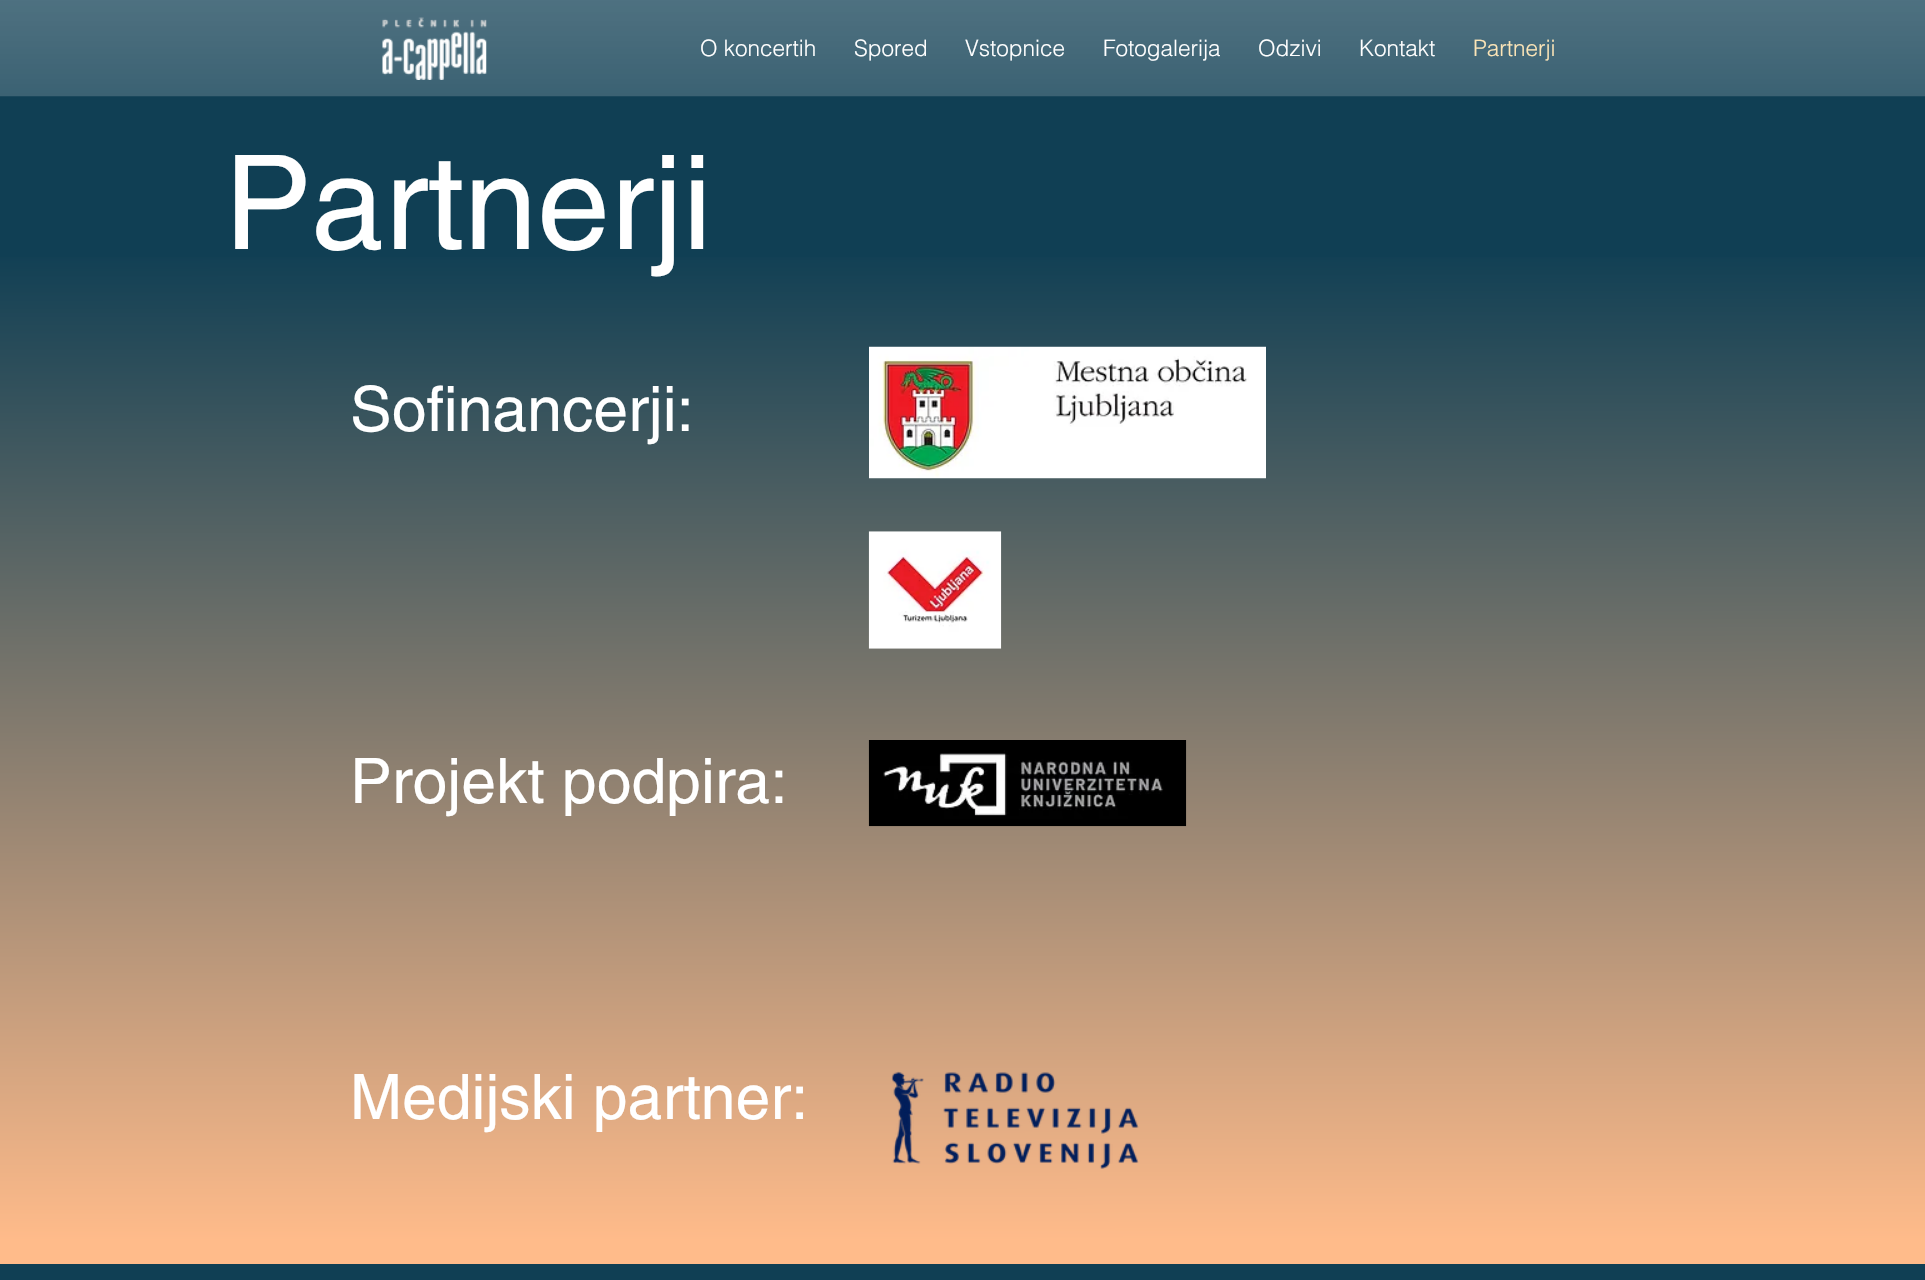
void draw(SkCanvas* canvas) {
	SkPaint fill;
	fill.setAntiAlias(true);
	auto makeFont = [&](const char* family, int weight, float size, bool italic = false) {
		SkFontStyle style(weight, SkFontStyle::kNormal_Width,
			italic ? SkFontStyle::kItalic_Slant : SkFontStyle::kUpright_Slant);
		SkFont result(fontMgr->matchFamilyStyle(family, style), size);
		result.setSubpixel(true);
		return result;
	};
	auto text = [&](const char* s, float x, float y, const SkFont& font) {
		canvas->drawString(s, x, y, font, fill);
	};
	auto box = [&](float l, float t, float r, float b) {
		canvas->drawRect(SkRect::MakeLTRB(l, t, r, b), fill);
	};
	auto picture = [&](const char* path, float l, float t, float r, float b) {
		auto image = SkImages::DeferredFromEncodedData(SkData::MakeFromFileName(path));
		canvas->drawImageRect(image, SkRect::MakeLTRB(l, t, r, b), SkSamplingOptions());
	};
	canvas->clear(0xFF103F54);
	picture("image0.png", 0, 0, 1925, 97);
	picture("image1.png", 382, 17, 487, 80);
	{
		const SkColor colors[] = {0xFF103F54, 0xFFFFBB8A};
		const float stops[] = {0.13f, 0.98f};
		const SkPoint ends[] = {{962, 96}, {963, 1264}};
		fill.setShader(SkGradientShader::MakeLinear(ends, colors, stops, 2, SkTileMode::kClamp));
		fill.setAlpha(255);
	}
	box(0, 257, 1925, 1264);
	picture("image2.png", 869, 346, 1266, 479);
	picture("image3.png", 868, 531, 1002, 649);
	picture("image4.png", 868, 740, 1187, 827);
	picture("image5.png", 891, 1071, 1139, 1169);
	auto font1 = makeFont("helvetica", 300, 22.5f);
	fill.setShader(nullptr);
	fill.setColor(0xFFFFFFFF);
	text("O koncertih", 700, 56, font1);
	text("Spored", 854, 56, font1);
	text("Vstopnice", 965, 56, font1);
	text("Fotogalerija", 1103, 56, font1);
	text("Odzivi", 1258, 56, font1);
	text("Kontakt", 1359, 56, font1);
	fill.setColor(0xFFFCE5B7);
	text("Partnerji", 1473, 56, font1);
	auto font2 = makeFont("helvetica", 400, 131);
	fill.setColor(0xFFFFFFFF);
	text("Partnerji", 224, 249, font2);
	auto font3 = makeFont("helvetica", 400, 62.5f);
	text("Sofinancerji:", 350, 431, font3);
	text("Projekt podpira:", 350, 803, font3);
	text("Medijski partner:", 350, 1119, font3);
}
